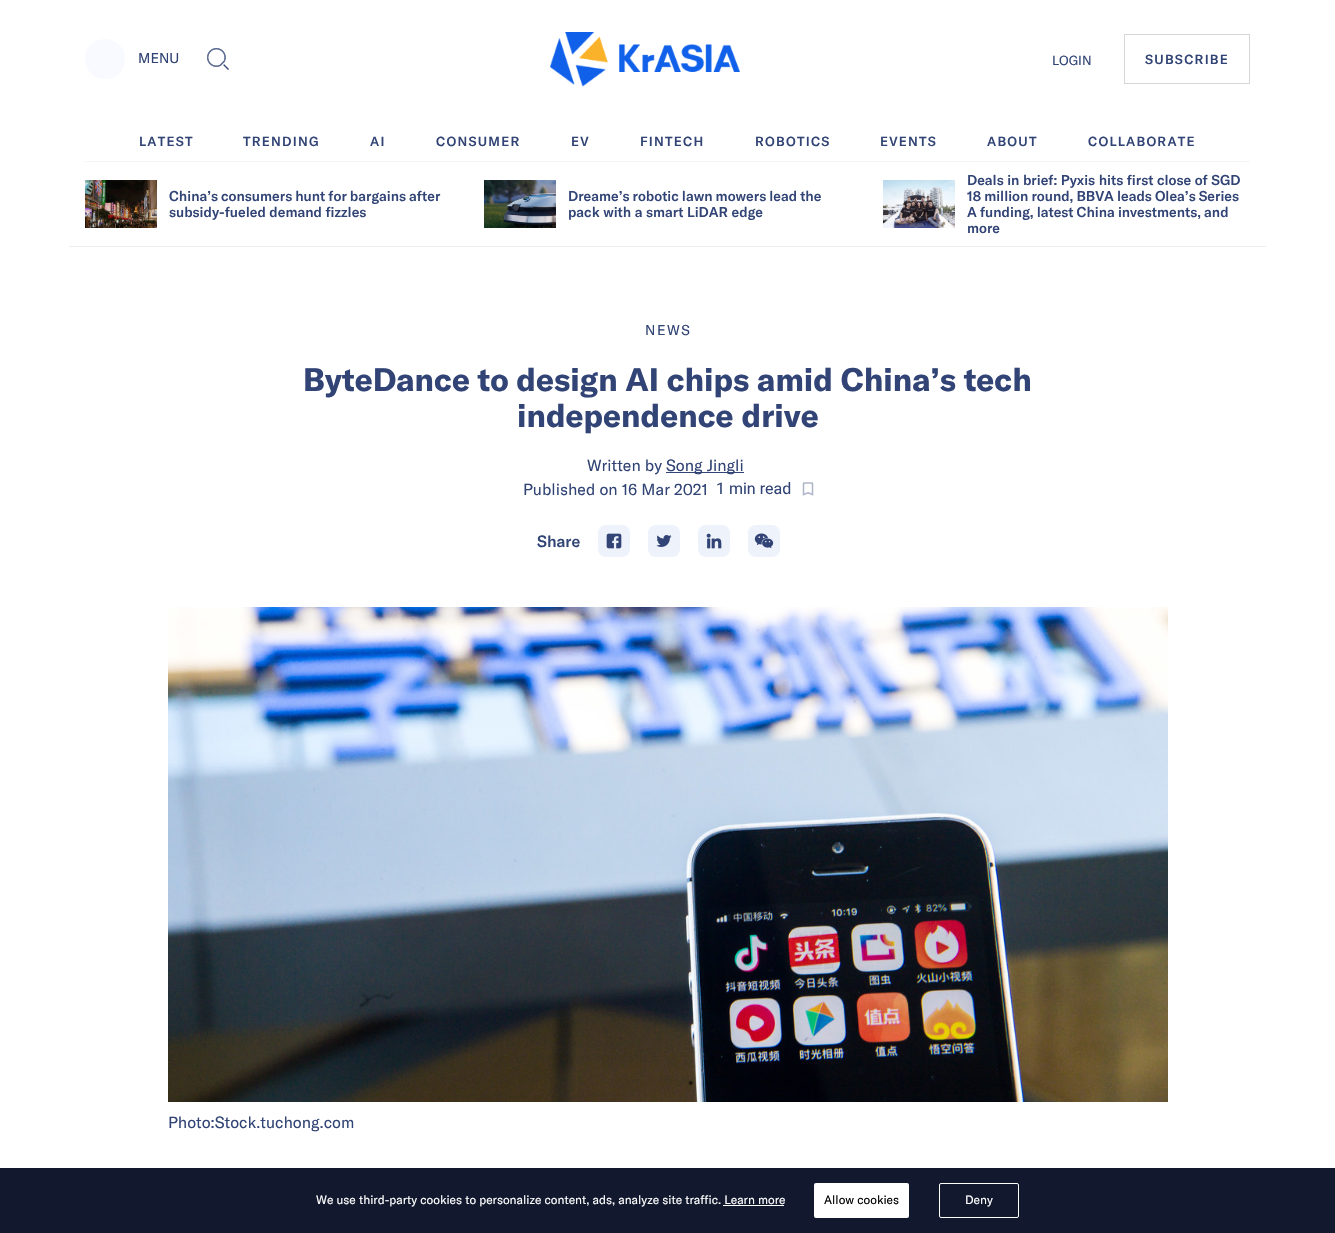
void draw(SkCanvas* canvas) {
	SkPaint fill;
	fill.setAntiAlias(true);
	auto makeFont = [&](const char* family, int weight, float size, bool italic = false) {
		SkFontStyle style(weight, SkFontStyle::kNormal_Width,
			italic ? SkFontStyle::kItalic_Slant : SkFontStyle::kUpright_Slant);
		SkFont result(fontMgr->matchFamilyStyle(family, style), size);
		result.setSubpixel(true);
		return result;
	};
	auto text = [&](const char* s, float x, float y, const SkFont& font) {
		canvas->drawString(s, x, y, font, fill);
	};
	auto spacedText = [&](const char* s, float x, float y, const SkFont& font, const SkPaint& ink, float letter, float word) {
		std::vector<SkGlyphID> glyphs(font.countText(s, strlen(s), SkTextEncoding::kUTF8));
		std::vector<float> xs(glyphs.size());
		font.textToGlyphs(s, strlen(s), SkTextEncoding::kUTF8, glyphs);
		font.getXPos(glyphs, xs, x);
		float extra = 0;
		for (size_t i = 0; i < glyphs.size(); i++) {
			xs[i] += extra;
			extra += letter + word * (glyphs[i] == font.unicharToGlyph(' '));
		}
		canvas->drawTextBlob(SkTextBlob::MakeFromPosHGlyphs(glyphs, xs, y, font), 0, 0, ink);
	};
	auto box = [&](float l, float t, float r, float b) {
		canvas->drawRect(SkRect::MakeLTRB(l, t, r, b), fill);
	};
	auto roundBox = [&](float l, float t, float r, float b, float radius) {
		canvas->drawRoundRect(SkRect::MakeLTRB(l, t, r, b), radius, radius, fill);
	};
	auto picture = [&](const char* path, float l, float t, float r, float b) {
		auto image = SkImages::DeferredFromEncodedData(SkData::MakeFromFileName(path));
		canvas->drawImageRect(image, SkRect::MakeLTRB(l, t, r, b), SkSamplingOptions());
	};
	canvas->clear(0xFFFFFFFF);
	fill.setColor(0xFFF9FAFF);
	canvas->drawCircle(105, 59, 20, fill);
	picture("image0.png", 207, 48, 229, 70);
	picture("image1.png", 550, 32, 740, 87);
	fill.setStyle(SkPaint::kStroke_Style);
	fill.setStrokeWidth(1);
	fill.setColor(0xFFD6D6D6);
	canvas->drawRect(SkRect::MakeLTRB(1124.5f, 34.5f, 1249.5f, 83.5f), fill);
	fill.setStyle(SkPaint::kFill_Style);
	fill.setColor(0xFFF5F5F5);
	box(85, 161, 1250, 162);
	fill.setColor(0xFFEEEEEE);
	box(69, 246, 1266, 247);
	picture("image2.png", 85, 180, 157, 228);
	picture("image3.png", 484, 180, 556, 228);
	picture("image4.png", 883, 180, 955, 228);
	fill.setColor(0xFF314475);
	box(666, 472, 744, 473);
	picture("image5.png", 802, 482, 814, 496);
	fill.setColor(0xFFEEF2FA);
	roundBox(598, 525, 630, 557, 8);
	picture("image6.png", 606, 533, 622, 549);
	roundBox(648, 525, 680, 557, 8);
	picture("image7.png", 656, 535, 672, 547);
	roundBox(698, 525, 730, 557, 8);
	picture("image8.png", 706, 533, 722, 549);
	roundBox(748, 525, 780, 557, 8);
	picture("image9.png", 754, 533, 774, 549);
	picture("image10.png", 168, 607, 1168, 1102);
	fill.setColor(0xFF12182D);
	box(0, 1168, 1335, 1233);
	fill.setColor(0xFFFFFFFF);
	box(723, 1205, 784, 1206);
	roundBox(814, 1183, 909, 1218, 2);
	fill.setStyle(SkPaint::kStroke_Style);
	canvas->drawRoundRect(SkRect::MakeLTRB(939.5f, 1183.5f, 1018.5f, 1217.5f), 1.5f, 1.5f, fill);
	auto font1 = makeFont("GT America", 400, 14);
	fill.setStyle(SkPaint::kFill_Style);
	fill.setColor(0xFF314475);
	text("MENU", 138, 63, font1);
	auto font2 = makeFont("GT America", 400, 13);
	text("LOGIN", 1052, 65, font2);
	auto font3 = makeFont("GT America", 500, 13);
	spacedText("SUBSCRIBE", 1145, 64, font3, fill, 1.25f, 0);
	spacedText("LATEST", 139, 146, font3, fill, 1.25f, 0);
	spacedText("TRENDING", 243, 146, font3, fill, 1.25f, 0);
	spacedText("AI", 370, 146, font3, fill, 1.25f, 0);
	spacedText("CONSUMER", 436, 146, font3, fill, 1.25f, 0);
	spacedText("EV", 571, 146, font3, fill, 1.25f, 0);
	spacedText("FINTECH", 640, 146, font3, fill, 1.25f, 0);
	spacedText("ROBOTICS", 755, 146, font3, fill, 1.25f, 0);
	spacedText("EVENTS", 880, 146, font3, fill, 1.25f, 0);
	spacedText("ABOUT", 987, 146, font3, fill, 1.25f, 0);
	spacedText("COLLABORATE", 1088, 146, font3, fill, 1.25f, 0);
	auto font4 = makeFont("GT America", 500, 14);
	spacedText("China’s consumers hunt for bargains after", 169, 201, font4, fill, 0, -0.5f);
	text("subsidy-fueled demand fizzles", 169, 217, font4);
	spacedText("Dreame’s robotic lawn mowers lead the", 568, 201, font4, fill, 0, -0.5f);
	text("pack with a smart LiDAR edge", 568, 217, font4);
	text("Deals in brief: Pyxis hits first close of SGD", 967, 185, font4);
	spacedText("18 million round, BBVA leads Olea’s Series", 967, 201, font4, fill, 0, -0.5f);
	spacedText("A funding, latest China investments, and", 967, 217, font4, fill, 0, -0.5f);
	text("more", 967, 233, font4);
	spacedText("NEWS", 645, 335, font1, fill, 1.5f, 0);
	auto font5 = makeFont("GT America", 700, 32);
	spacedText("ByteDance to design AI chips amid China’s tech", 303, 391, font5, fill, 0, -0.25f);
	text("independence drive", 517, 427, font5);
	auto font6 = makeFont("GT America", 400, 16);
	text("Written by", 587, 471, font6);
	text("Song Jingli", 666, 471, font6);
	text("Published on 16 Mar 2021", 523, 495, font6);
	auto font7 = makeFont("Roboto", 400, 16);
	text("1 min read", 716, 494, font7);
	auto font8 = makeFont("GT America", 500, 16);
	text("Share", 537, 547, font8);
	text("Photo:Stock.tuchong.com", 168, 1128, font6);
	auto font9 = makeFont("GT America", 400, 12);
	fill.setColor(0xFFFFFFFF);
	text("We use third-party cookies to personalize content, ads, analyze site traffic. Learn more", 316, 1204, font9);
	fill.setColor(0xFF000000);
	text("Allow cookies", 824, 1204, font9);
	fill.setColor(0xFFFFFFFF);
	text("Deny", 965, 1204, font9);
}
